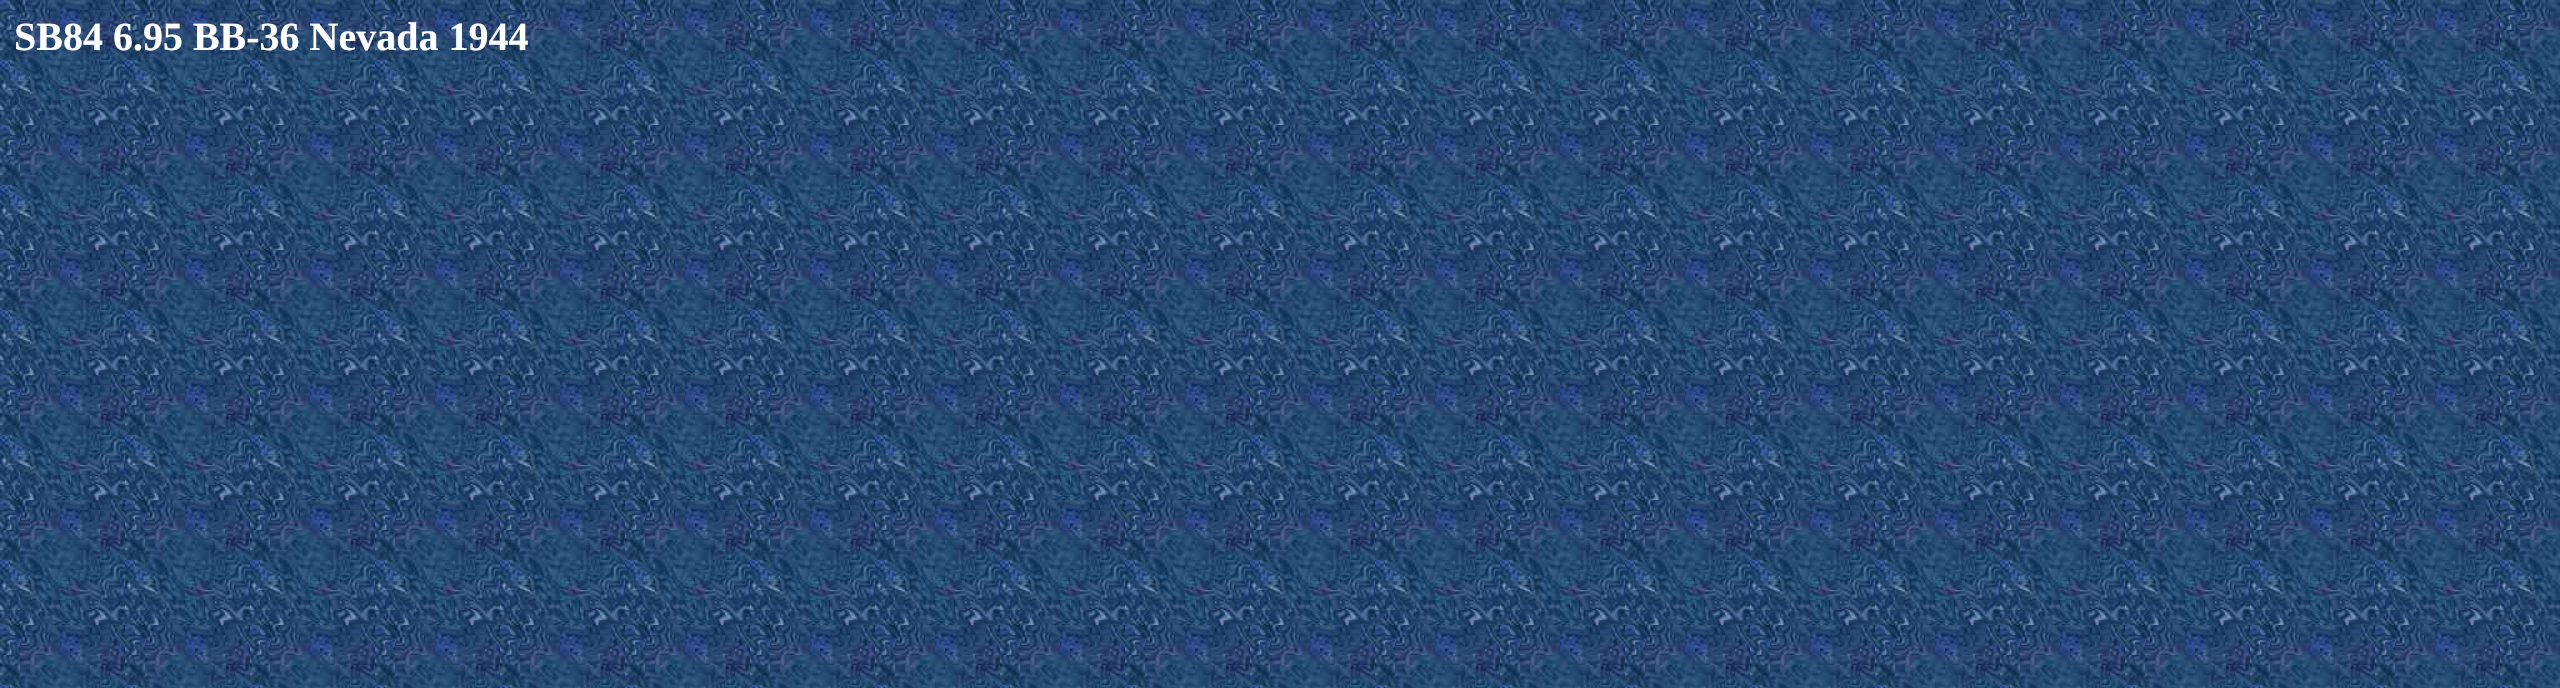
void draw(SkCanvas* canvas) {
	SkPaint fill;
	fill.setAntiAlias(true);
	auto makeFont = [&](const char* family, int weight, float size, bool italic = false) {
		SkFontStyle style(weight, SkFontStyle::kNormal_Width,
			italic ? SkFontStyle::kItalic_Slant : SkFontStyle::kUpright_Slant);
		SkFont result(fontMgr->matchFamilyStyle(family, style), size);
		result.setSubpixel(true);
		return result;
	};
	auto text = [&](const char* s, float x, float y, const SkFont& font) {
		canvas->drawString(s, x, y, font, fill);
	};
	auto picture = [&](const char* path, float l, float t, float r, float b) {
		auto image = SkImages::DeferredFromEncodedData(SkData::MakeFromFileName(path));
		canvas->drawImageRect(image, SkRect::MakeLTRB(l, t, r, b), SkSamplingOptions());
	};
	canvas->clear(0xFFFFFFFF);
	picture("image0.png", 0, 0, 2560, 688);
	auto font1 = makeFont("Liberation Serif", 700, 40);
	fill.setColor(0xFFFFFFFF);
	text("SB84 6.95 BB-36 Nevada 1944", 14, 50, font1);
}
